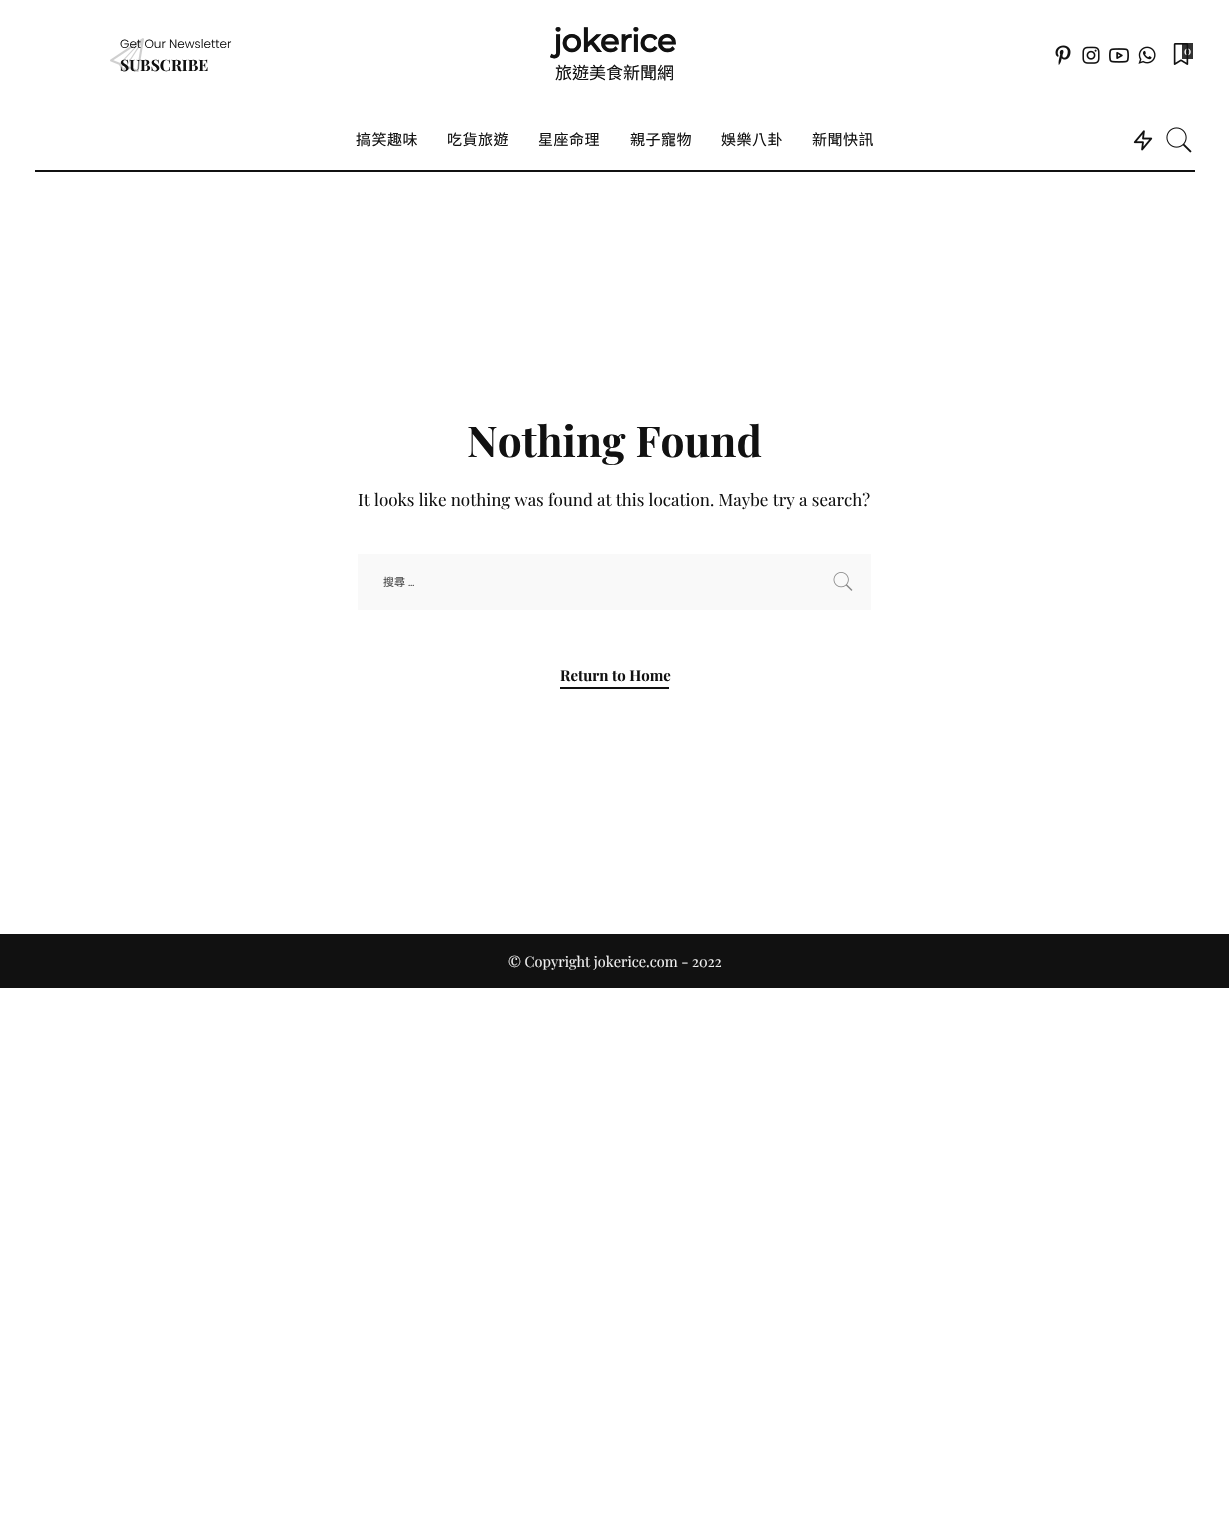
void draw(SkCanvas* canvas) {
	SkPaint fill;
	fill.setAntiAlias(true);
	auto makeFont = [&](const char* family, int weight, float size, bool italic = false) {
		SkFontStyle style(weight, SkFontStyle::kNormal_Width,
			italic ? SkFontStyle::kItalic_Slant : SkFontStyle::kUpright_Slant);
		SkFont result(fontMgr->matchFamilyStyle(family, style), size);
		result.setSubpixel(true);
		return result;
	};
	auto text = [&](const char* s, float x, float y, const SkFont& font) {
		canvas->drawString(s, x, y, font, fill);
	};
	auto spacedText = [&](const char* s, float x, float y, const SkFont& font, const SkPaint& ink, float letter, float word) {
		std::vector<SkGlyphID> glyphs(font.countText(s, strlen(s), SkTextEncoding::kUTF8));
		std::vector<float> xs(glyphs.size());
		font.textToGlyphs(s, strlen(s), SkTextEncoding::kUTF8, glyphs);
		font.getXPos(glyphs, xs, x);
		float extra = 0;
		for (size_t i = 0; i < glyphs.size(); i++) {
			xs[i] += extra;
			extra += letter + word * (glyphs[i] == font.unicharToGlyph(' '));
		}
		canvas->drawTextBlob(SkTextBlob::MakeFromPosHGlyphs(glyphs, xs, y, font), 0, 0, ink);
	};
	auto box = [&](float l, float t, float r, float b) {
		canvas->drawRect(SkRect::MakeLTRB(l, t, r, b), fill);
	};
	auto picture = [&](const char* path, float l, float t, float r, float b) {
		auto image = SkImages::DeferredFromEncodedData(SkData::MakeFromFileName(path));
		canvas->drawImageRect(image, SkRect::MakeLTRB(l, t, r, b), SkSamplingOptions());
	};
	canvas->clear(0xFFFFFFFF);
	picture("image1.png", 1055, 45, 1071, 65);
	picture("image2.png", 1082, 46, 1100, 64);
	picture("image3.png", 1109, 48, 1129, 63);
	picture("image4.png", 1138, 46, 1156, 64);
	fill.setColor(0xFF333333);
	box(1182, 43, 1193, 59);
	fill.setColor(0xFF111111);
	box(35, 170, 1195, 172);
	picture("image6.png", 1133, 130, 1153, 151);
	picture("image7.png", 1166, 127, 1192, 153);
	fill.setColor(0xFFF9F9F9);
	box(358, 554, 871, 610);
	picture("image8.png", 833, 572, 853, 591);
	fill.setColor(0xFF111111);
	box(560, 687, 669, 689);
	box(0, 934, 1229, 988);
	auto font1 = makeFont("Poppins", 300, 12);
	text("Get Our Newsletter", 120, 48, font1);
	auto font2 = makeFont("Playfair Display", 700, 15.75f);
	text("SUBSCRIBE", 120, 71, font2);
	picture("image0.png", 110, 38, 144, 72);
	auto font3 = makeFont("Montserrat", 700, 32);
	spacedText("jokerice", 553, 52, font3, fill, -0.75f, 0);
	auto font4 = makeFont("Noto Sans CJK TC", 400, 17);
	text("旅遊美食新聞網", 555, 79, font4);
	auto font5 = makeFont("Playfair Display", 400, 12);
	fill.setColor(0xFFFFFFFF);
	text("0", 1184, 55, font5);
	picture("image5.png", 1173, 43, 1189, 65);
	auto font6 = makeFont("Noto Sans CJK TC", 400, 15);
	fill.setColor(0xFF111111);
	spacedText("搞笑趣味", 356, 145, font6, fill, 0.5f, 0);
	spacedText("吃貨旅遊", 447, 145, font6, fill, 0.5f, 0);
	spacedText("星座命理", 538, 145, font6, fill, 0.5f, 0);
	spacedText("親子寵物", 630, 145, font6, fill, 0.5f, 0);
	spacedText("娛樂八卦", 721, 145, font6, fill, 0.5f, 0);
	spacedText("新聞快訊", 812, 145, font6, fill, 0.5f, 0);
	auto font7 = makeFont("Playfair Display", 700, 42.5f);
	text("Nothing Found", 467, 457, font7);
	auto font8 = makeFont("Playfair Display", 400, 17);
	text("It looks like nothing was found at this location. Maybe try a search?", 358, 506, font8);
	auto font9 = makeFont("Noto Sans CJK TC", 400, 11);
	fill.setColor(0xFF4B4B4B);
	text("搜尋", 383, 586, font9);
	auto font10 = makeFont("Poppins", 400, 11);
	text("…", 408, 586, font10);
	auto font11 = makeFont("Playfair Display", 700, 15);
	fill.setColor(0xFF111111);
	text("Return to Home", 560, 681, font11);
	auto font12 = makeFont("Playfair Display", 400, 14.5f);
	fill.setColor(0xFFEFEFEF);
	text("© Copyright jokerice.com - 2022", 508, 967, font12);
}
